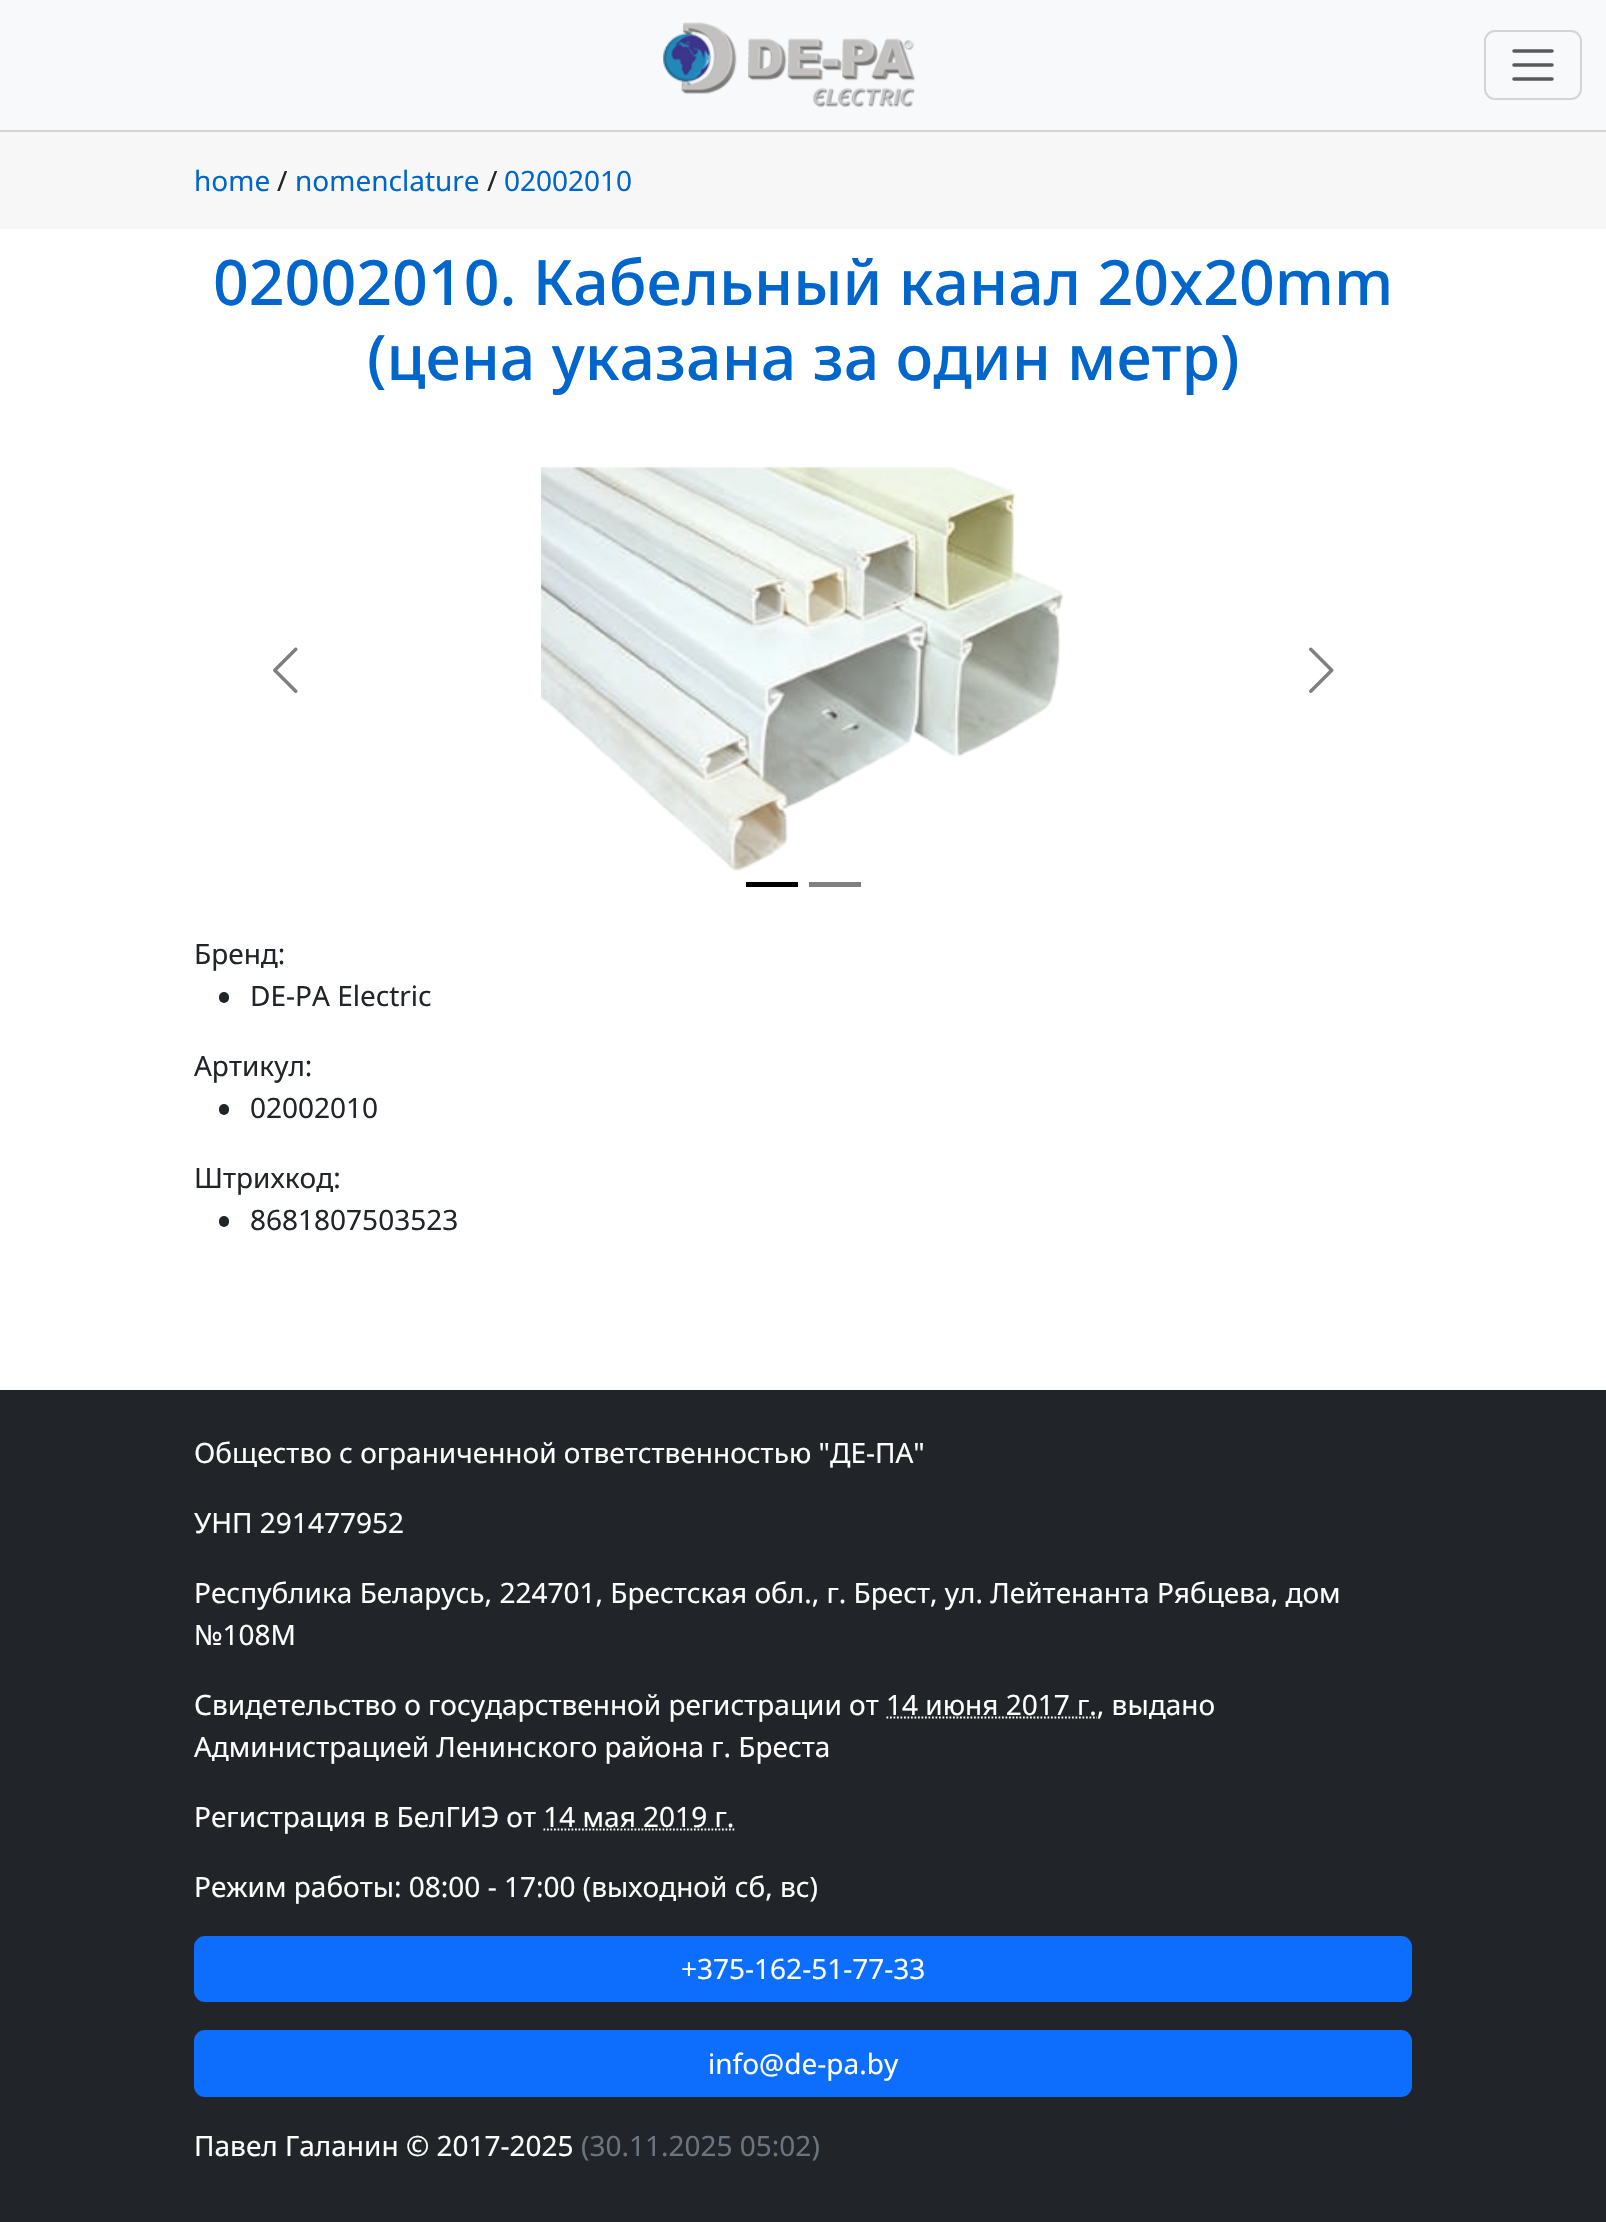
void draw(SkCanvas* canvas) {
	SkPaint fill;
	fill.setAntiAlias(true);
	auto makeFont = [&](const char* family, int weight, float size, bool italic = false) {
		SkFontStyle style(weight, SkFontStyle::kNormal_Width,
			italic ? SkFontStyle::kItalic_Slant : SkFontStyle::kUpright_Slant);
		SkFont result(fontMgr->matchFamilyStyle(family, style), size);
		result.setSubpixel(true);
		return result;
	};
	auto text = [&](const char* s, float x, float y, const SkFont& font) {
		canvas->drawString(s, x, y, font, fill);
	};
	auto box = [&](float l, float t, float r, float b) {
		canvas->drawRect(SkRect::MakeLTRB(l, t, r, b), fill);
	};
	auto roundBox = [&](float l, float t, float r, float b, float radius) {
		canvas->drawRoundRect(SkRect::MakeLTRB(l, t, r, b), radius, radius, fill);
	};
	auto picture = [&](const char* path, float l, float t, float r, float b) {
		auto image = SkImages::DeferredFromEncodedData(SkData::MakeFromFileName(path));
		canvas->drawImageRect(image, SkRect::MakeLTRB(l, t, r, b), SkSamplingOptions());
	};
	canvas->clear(0xFFFFFFFF);
	fill.setColor(0xFFF8F9FA);
	box(0, 0, 1606, 130);
	fill.setColor(0xFFD3D3D3);
	box(0, 130, 1606, 132);
	picture("image0.png", 663, 22, 916, 107);
	fill.setStyle(SkPaint::kStroke_Style);
	fill.setStrokeWidth(2);
	fill.setColor(0xFFD3D4D5);
	canvas->drawRoundRect(SkRect::MakeLTRB(1485, 31, 1581, 99), 10, 10, fill);
	fill.setStrokeWidth(3.5f);
	fill.setStrokeCap(SkPaint::kRound_Cap);
	fill.setColor(0xFF575A5D);
	canvas->drawPath(SkPathBuilder().moveTo(1514, 51).lineTo(1552, 51).moveTo(1514, 65).lineTo(1552, 65).moveTo(1514, 79).lineTo(1552, 79).detach(), fill);
	fill.setStyle(SkPaint::kFill_Style);
	fill.setColor(0xFFF7F7F7);
	box(0, 132, 1606, 229);
	picture("image1.png", 273, 647, 298, 693);
	picture("image2.png", 541, 466, 1064, 871);
	picture("image3.png", 1309, 647, 1334, 693);
	fill.setColor(0xFF000000);
	box(746, 882, 798, 887);
	fill.setColor(0xFF808080);
	box(809, 882, 861, 887);
	fill.setColor(0xFF212529);
	roundBox(219, 992, 229, 1003, 5);
	roundBox(219, 1104, 229, 1115, 5);
	roundBox(219, 1216, 229, 1227, 5);
	box(0, 1390, 1606, 2222);
	fill.setStyle(SkPaint::kStroke_Style);
	fill.setStrokeWidth(1.8f);
	fill.setStrokeCap(SkPaint::kButt_Cap);
	fill.setColor(0xFFFFFFFF);
	fill.setPathEffect(SkDashPathEffect::Make({{1.75f, 1.75f}}, 0));
	canvas->drawPath(SkPathBuilder().moveTo(886.5f, 1717.5f).lineTo(1097, 1717.5f).detach(), fill);
	fill.setPathEffect(nullptr);
	fill.setPathEffect(SkDashPathEffect::Make({{1.75f, 1.75f}}, 0));
	canvas->drawPath(SkPathBuilder().moveTo(543.5f, 1829.5f).lineTo(734.5f, 1829.5f).detach(), fill);
	fill.setPathEffect(nullptr);
	fill.setStyle(SkPaint::kFill_Style);
	fill.setColor(0xFF0D6EFD);
	canvas->drawRoundRect(SkRect::MakeLTRB(195, 1937, 1411, 2001), 10, 10, fill);
	fill.setStyle(SkPaint::kStroke_Style);
	fill.setStrokeWidth(2);
	canvas->drawRoundRect(SkRect::MakeLTRB(195, 1937, 1411, 2001), 10, 10, fill);
	fill.setStyle(SkPaint::kFill_Style);
	canvas->drawRoundRect(SkRect::MakeLTRB(195, 2031, 1411, 2096), 10, 10, fill);
	fill.setStyle(SkPaint::kStroke_Style);
	canvas->drawRoundRect(SkRect::MakeLTRB(195, 2031, 1411, 2096), 10, 10, fill);
	auto font1 = makeFont("Noto Sans", 400, 28);
	fill.setStyle(SkPaint::kFill_Style);
	fill.setColor(0xFF0066CC);
	text("home", 194, 191, font1);
	fill.setColor(0xFF212529);
	text("/", 277, 191, font1);
	fill.setColor(0xFF0066CC);
	text("nomenclature", 295, 191, font1);
	fill.setColor(0xFF212529);
	text("/", 487, 191, font1);
	fill.setColor(0xFF0066CC);
	text("02002010", 504, 191, font1);
	auto font2 = makeFont("Noto Sans", 500, 62.6f);
	text("02002010. Кабельный канал 20x20mm", 213, 305, font2);
	text("(цена указана за один метр)", 367, 380, font2);
	fill.setColor(0xFF212529);
	text("Бренд:", 194, 964, font1);
	text("DE-PA Electric", 250, 1006, font1);
	text("Артикул:", 194, 1076, font1);
	text("02002010", 250, 1118, font1);
	text("Штрихкод:", 194, 1188, font1);
	text("8681807503523", 250, 1230, font1);
	fill.setColor(0xFFFFFFFF);
	text("Общество с ограниченной ответственностью \"ДЕ-ПА\"", 194, 1463, font1);
	text("УНП 291477952", 194, 1533, font1);
	text("Республика Беларусь, 224701, Брестская обл., г. Брест, ул. Лейтенанта Рябцева, дом", 194, 1603, font1);
	text("№108М", 194, 1645, font1);
	text("Свидетельство о государственной регистрации от 14 июня 2017 г., выдано", 194, 1715, font1);
	text("Администрацией Ленинского района г. Бреста", 194, 1757, font1);
	text("Регистрация в БелГИЭ от 14 мая 2019 г.", 194, 1827, font1);
	text("Режим работы: 08:00 - 17:00 (выходной сб, вс)", 194, 1897, font1);
	text("+375-162-51-77-33", 681, 1979, font1);
	text("info@de-pa.by", 708, 2074, font1);
	text("Павел Галанин © 2017-2025", 194, 2156, font1);
	fill.setColor(0xFF6C757D);
	text("(30.11.2025 05:02)", 581, 2156, font1);
}
